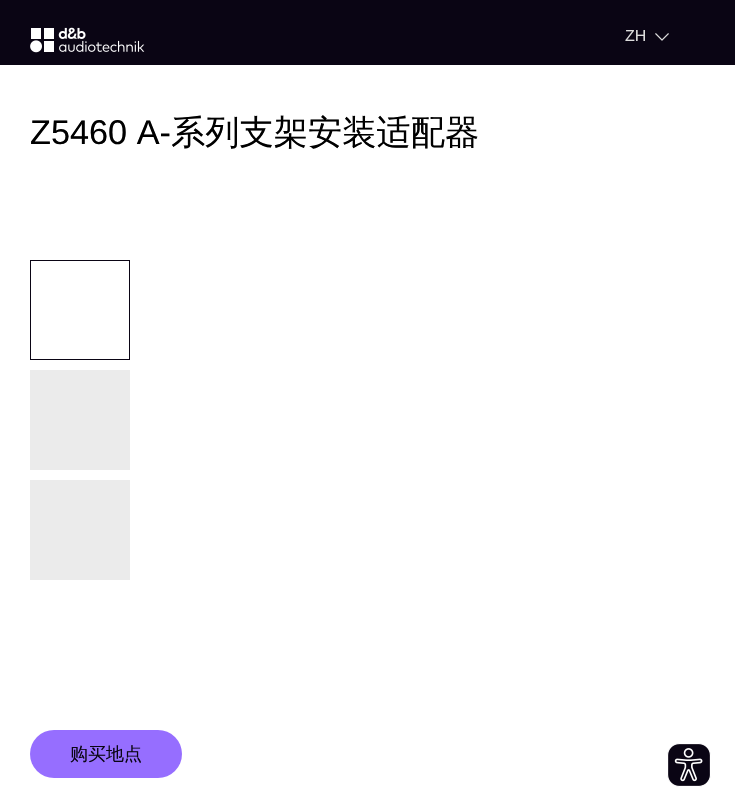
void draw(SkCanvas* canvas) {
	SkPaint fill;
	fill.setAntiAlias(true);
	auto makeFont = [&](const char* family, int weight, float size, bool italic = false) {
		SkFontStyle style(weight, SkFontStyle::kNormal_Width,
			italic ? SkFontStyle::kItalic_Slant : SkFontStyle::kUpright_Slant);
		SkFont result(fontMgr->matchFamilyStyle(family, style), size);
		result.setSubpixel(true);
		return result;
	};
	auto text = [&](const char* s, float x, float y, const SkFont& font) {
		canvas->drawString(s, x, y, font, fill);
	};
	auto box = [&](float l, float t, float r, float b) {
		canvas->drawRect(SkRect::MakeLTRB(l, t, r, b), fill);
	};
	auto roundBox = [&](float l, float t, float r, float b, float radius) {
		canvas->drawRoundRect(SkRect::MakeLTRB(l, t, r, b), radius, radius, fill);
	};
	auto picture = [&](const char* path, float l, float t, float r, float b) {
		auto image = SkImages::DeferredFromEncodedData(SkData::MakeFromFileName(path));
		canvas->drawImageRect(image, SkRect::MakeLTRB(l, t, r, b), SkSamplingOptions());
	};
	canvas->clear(0xFFFFFFFF);
	fill.setColor(0xFF0A0514);
	box(0, 0, 735, 65);
	picture("image0.png", 30, 27, 145, 53);
	picture("image1.png", 655, 33, 669, 41);
	fill.setStyle(SkPaint::kStroke_Style);
	fill.setStrokeWidth(1);
	canvas->drawRect(SkRect::MakeLTRB(30.5f, 260.5f, 129.5f, 359.5f), fill);
	fill.setStyle(SkPaint::kFill_Style);
	fill.setColor(0xFFEBEBEB);
	box(30, 370, 130, 470);
	box(30, 480, 130, 580);
	fill.setColor(0xFF966EFF);
	roundBox(30, 730, 182, 778, 24);
	picture("image2.png", 667, 743, 711, 787);
	auto font1 = makeFont("Liberation Sans", 400, 16);
	fill.setColor(0xFFDCDCDC);
	text("ZH", 625, 41, font1);
	auto font2 = makeFont("Liberation Sans", 400, 34.25f);
	fill.setColor(0xFF000000);
	text("Z5460 A-", 30, 144, font2);
	auto font3 = makeFont("WenQuanYi Zen Hei", 500, 34.25f);
	text("系列支架安装适配器", 171, 144, font3);
	auto font4 = makeFont("WenQuanYi Zen Hei", 500, 18);
	fill.setColor(0xFF0A0514);
	text("购买地点", 70, 760, font4);
}
